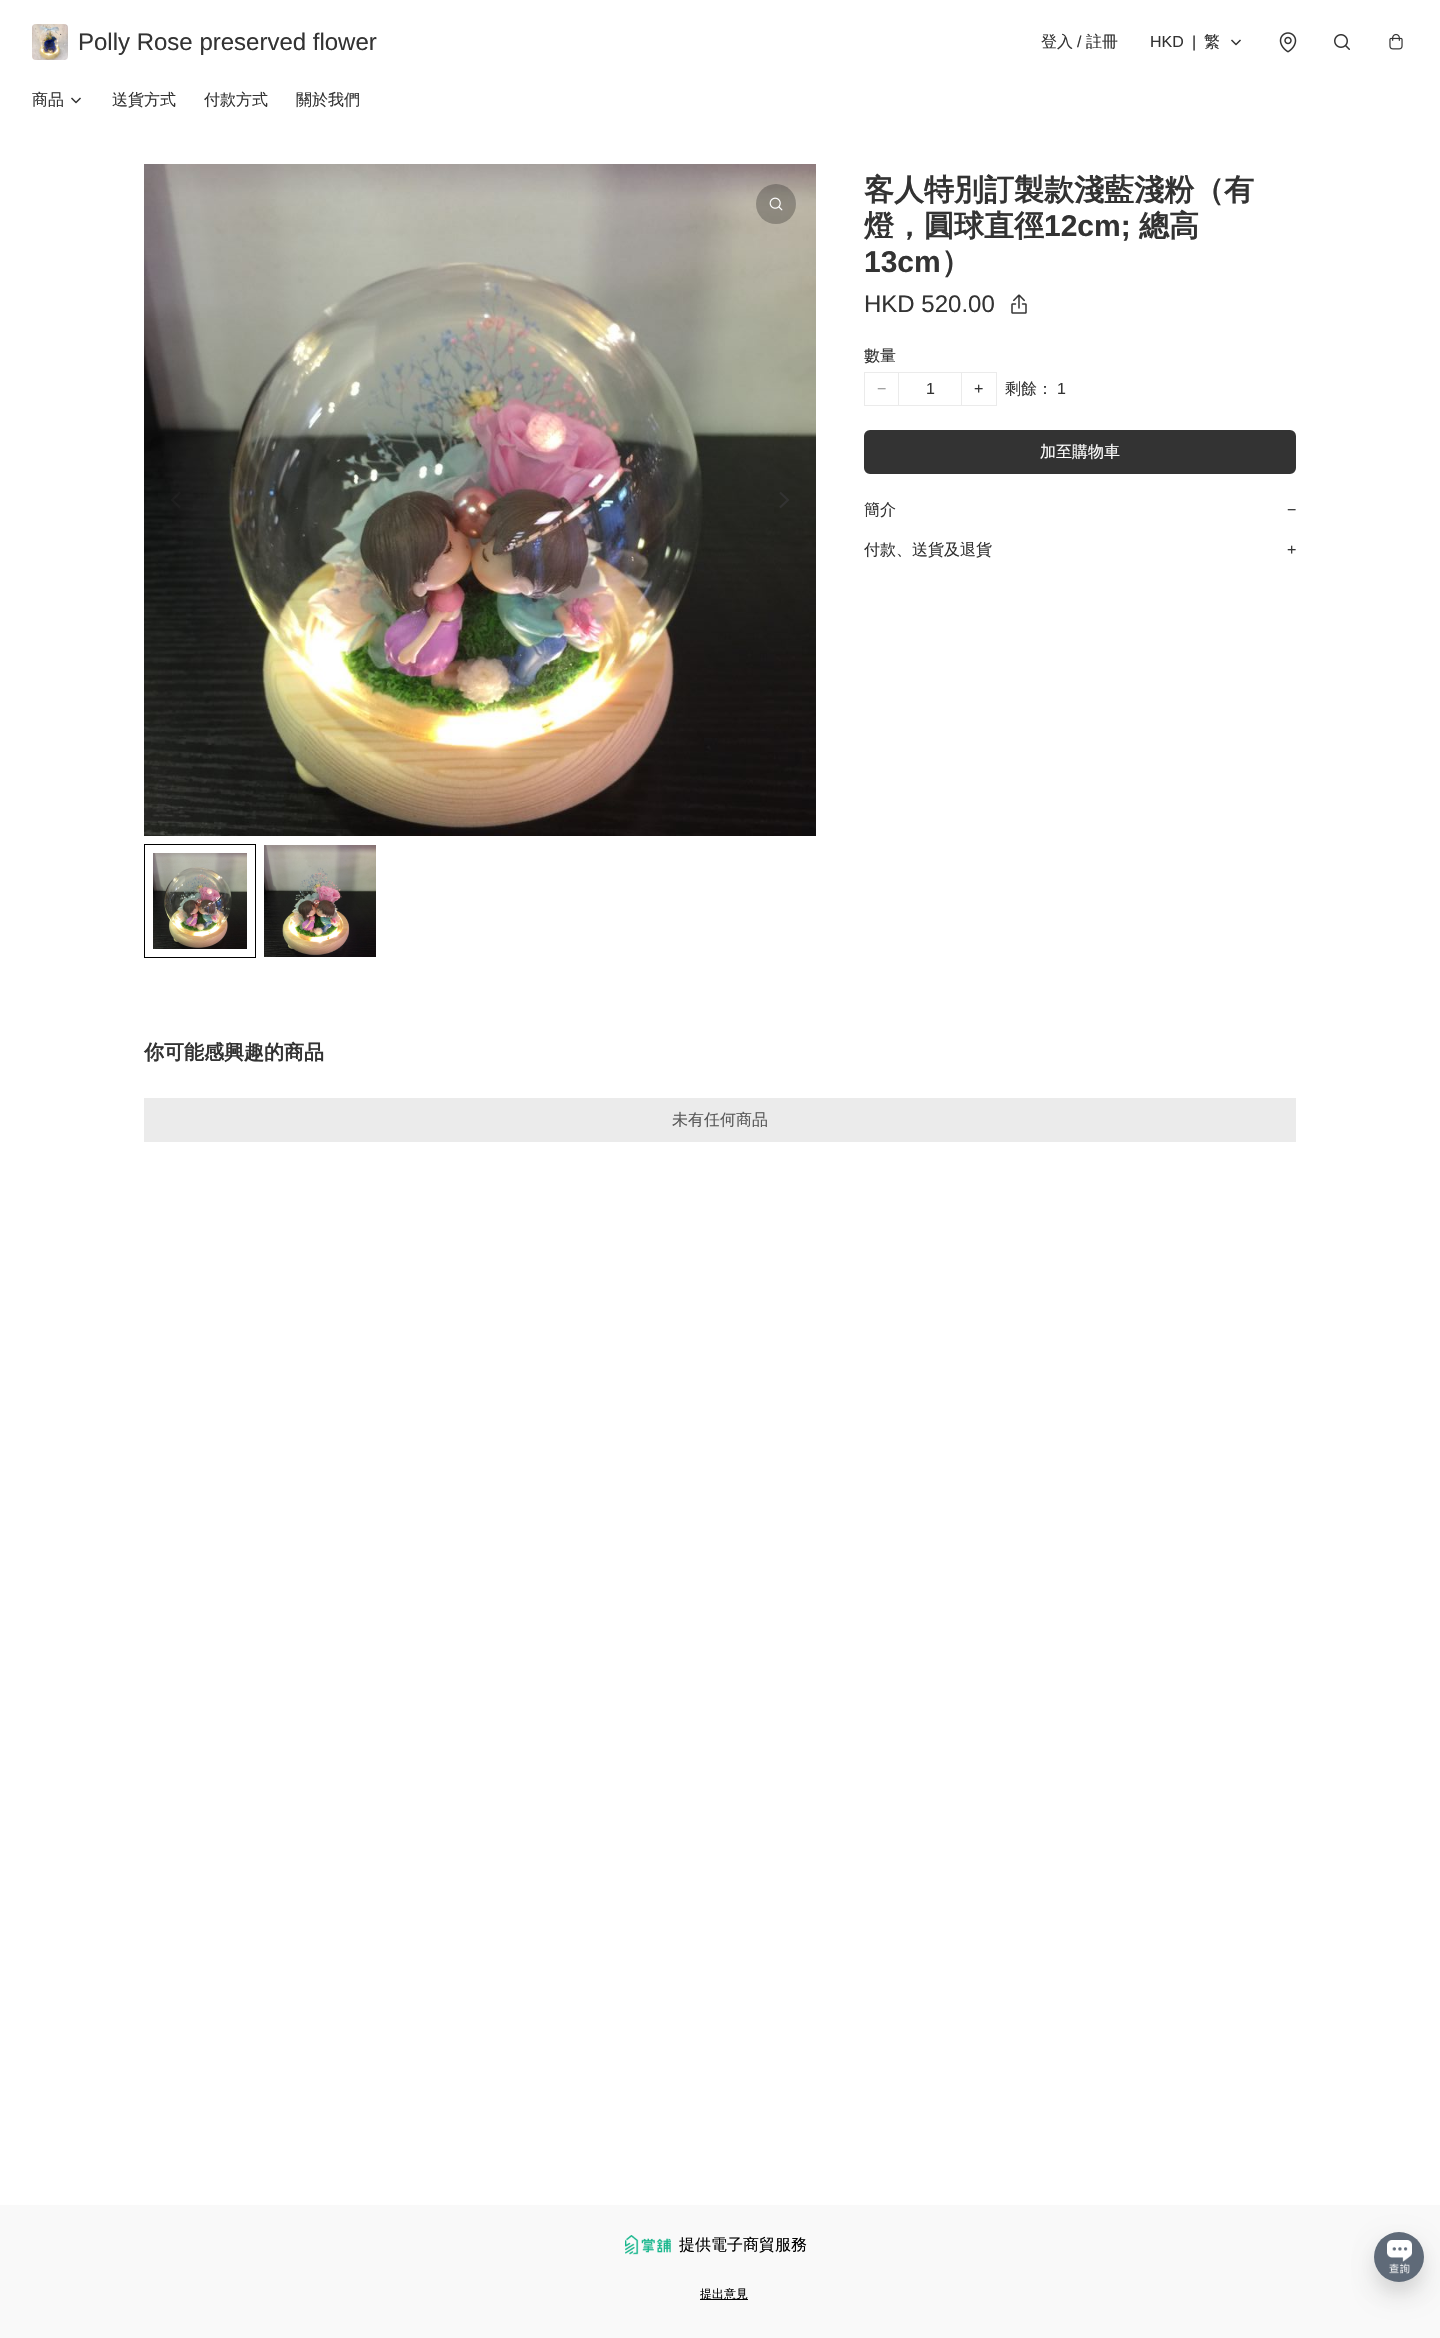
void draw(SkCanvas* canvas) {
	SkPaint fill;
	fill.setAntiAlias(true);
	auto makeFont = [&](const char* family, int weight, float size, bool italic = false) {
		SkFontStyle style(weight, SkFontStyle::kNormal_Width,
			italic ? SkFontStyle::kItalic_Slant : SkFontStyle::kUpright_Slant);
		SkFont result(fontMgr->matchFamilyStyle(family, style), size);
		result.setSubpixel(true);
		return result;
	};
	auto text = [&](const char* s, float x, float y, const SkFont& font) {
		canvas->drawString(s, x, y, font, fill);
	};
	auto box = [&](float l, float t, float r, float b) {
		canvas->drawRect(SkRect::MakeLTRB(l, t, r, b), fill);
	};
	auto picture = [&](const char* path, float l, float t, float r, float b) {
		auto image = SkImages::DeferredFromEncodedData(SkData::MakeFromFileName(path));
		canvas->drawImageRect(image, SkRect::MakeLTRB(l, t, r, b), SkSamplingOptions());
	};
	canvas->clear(0xFFFFFFFF);
	picture("image0.png", 32, 24, 68, 60);
	fill.setStyle(SkPaint::kStroke_Style);
	fill.setStrokeWidth(1.5f);
	fill.setStrokeCap(SkPaint::kSquare_Cap);
	fill.setStrokeJoin(SkPaint::kRound_Join);
	fill.setColor(0xFF333333);
	canvas->drawPath(SkPathBuilder().moveTo(1232, 40.5f).lineTo(1236, 44.5f).lineTo(1240, 40.5f).detach(), fill);
	picture("image1.png", 1279, 32, 1297, 53);
	picture("image2.png", 1334, 34, 1350, 50);
	picture("image3.png", 1389, 33, 1403, 50);
	canvas->drawPath(SkPathBuilder().moveTo(72, 98.5f).lineTo(76, 102.5f).lineTo(80, 98.5f).detach(), fill);
	picture("image4.png", 144, 164, 816, 836);
	fill.setStyle(SkPaint::kFill_Style);
	fill.setColor(0x40000000);
	canvas->drawCircle(776, 204, 20, fill);
	picture("image5.png", 769, 197, 783, 211);
	fill.setStyle(SkPaint::kStroke_Style);
	fill.setStrokeWidth(2);
	fill.setStrokeCap(SkPaint::kButt_Cap);
	fill.setStrokeJoin(SkPaint::kMiter_Join);
	fill.setColor(0x4D333333);
	canvas->drawPath(SkPathBuilder().moveTo(180, 492.5f).lineTo(172, 500).lineTo(180, 507.5f).detach(), fill);
	fill.setColor(0xFF333333);
	canvas->drawPath(SkPathBuilder().moveTo(780, 492.5f).lineTo(788, 500).lineTo(780, 507.5f).detach(), fill);
	fill.setStrokeWidth(1);
	fill.setColor(0xFF000000);
	canvas->drawRect(SkRect::MakeLTRB(144.5f, 844.5f, 255.5f, 957.5f), fill);
	picture("image6.png", 153, 853, 247, 949);
	picture("image7.png", 264, 845, 376, 957);
	picture("image8.png", 1011, 294, 1027, 314);
	fill.setColor(0xFFEBEBEB);
	canvas->drawRect(SkRect::MakeLTRB(864.5f, 372.5f, 996.5f, 405.5f), fill);
	fill.setStyle(SkPaint::kFill_Style);
	box(961, 373, 962, 405);
	box(898, 373, 899, 405);
	fill.setColor(0xFF333333);
	canvas->drawRoundRect(SkRect::MakeLTRB(865, 431, 1295, 473), 5, 5, fill);
	fill.setStyle(SkPaint::kStroke_Style);
	fill.setStrokeWidth(2);
	canvas->drawRoundRect(SkRect::MakeLTRB(865, 431, 1295, 473), 5, 5, fill);
	fill.setStyle(SkPaint::kFill_Style);
	fill.setColor(0xFFEBEBEB);
	box(144, 1098, 1296, 1142);
	fill.setColor(0xFFF9F9F9);
	box(0, 2205, 1440, 2338);
	picture("image9.png", 625, 2235, 671, 2255);
	fill.setColor(0xFF000000);
	box(700, 2299, 748, 2300);
	fill.setColor(0x4D000000);
	fill.setMaskFilter(SkMaskFilter::MakeBlur(kNormal_SkBlurStyle, 15));
	canvas->drawRoundRect(SkRect::MakeLTRB(1384, 2257, 1414, 2287), 15, 15, fill);
	fill.setMaskFilter(nullptr);
	fill.setColor(0x0D000000);
	fill.setMaskFilter(SkMaskFilter::MakeBlur(kNormal_SkBlurStyle, 10));
	canvas->drawRoundRect(SkRect::MakeLTRB(1374, 2237, 1424, 2287), 25, 25, fill);
	fill.setMaskFilter(nullptr);
	fill.setColor(0xFF5F6A78);
	canvas->drawCircle(1399, 2257, 25, fill);
	picture("image10.png", 1387, 2240, 1412, 2274);
	auto font1 = makeFont("Liberation Sans", 400, 24);
	fill.setColor(0xFF333333);
	text("Polly Rose preserved flower", 78, 50, font1);
	auto font2 = makeFont("WenQuanYi Zen Hei", 500, 16);
	text("登入", 1041, 47, font2);
	auto font3 = makeFont("Liberation Sans", 400, 16);
	text("/", 1077, 47, font3);
	text("註冊", 1086, 47, font2);
	text("HKD", 1150, 47, font3);
	text("|", 1192, 47, font3);
	text("繁", 1204, 47, font2);
	text("商品", 32, 105, font2);
	text("送貨方式", 112, 105, font2);
	text("付款方式", 204, 105, font2);
	text("關於我們", 296, 105, font2);
	auto font4 = makeFont("WenQuanYi Zen Hei", 700, 30);
	text("客人特別訂製款淺藍淺粉（有", 864, 200, font4);
	text("燈，圓球直徑", 864, 236, font4);
	auto font5 = makeFont("Liberation Sans", 700, 30);
	text("12cm;", 1044, 236, font5);
	text("總高", 1139, 236, font4);
	text("13cm", 864, 272, font5);
	text("）", 941, 272, font4);
	text("HKD 520.00", 864, 312, font1);
	text("數量", 864, 361, font2);
	fill.setColor(0xFF999999);
	text("−", 877, 394, font3);
	fill.setColor(0xFF333333);
	text("1", 926, 394, font3);
	text("+", 974, 394, font3);
	text("剩餘：", 1005, 394, font2);
	text("1", 1057, 394, font3);
	fill.setColor(0xFFFFFFFF);
	text("加至購物車", 1040, 457, font2);
	fill.setColor(0xFF333333);
	text("簡介", 864, 515, font2);
	text("−", 1287, 515, font3);
	text("付款、送貨及退貨", 864, 555, font2);
	text("+", 1287, 555, font3);
	auto font6 = makeFont("WenQuanYi Zen Hei", 700, 20);
	text("你可能感興趣的商品", 144, 1059, font6);
	fill.setColor(0xFF585858);
	text("未有任何商品", 672, 1125, font2);
	fill.setColor(0xFF000000);
	text("提供電子商貿服務", 679, 2250, font2);
	auto font7 = makeFont("WenQuanYi Zen Hei", 500, 12);
	text("提出意見", 700, 2298, font7);
}
